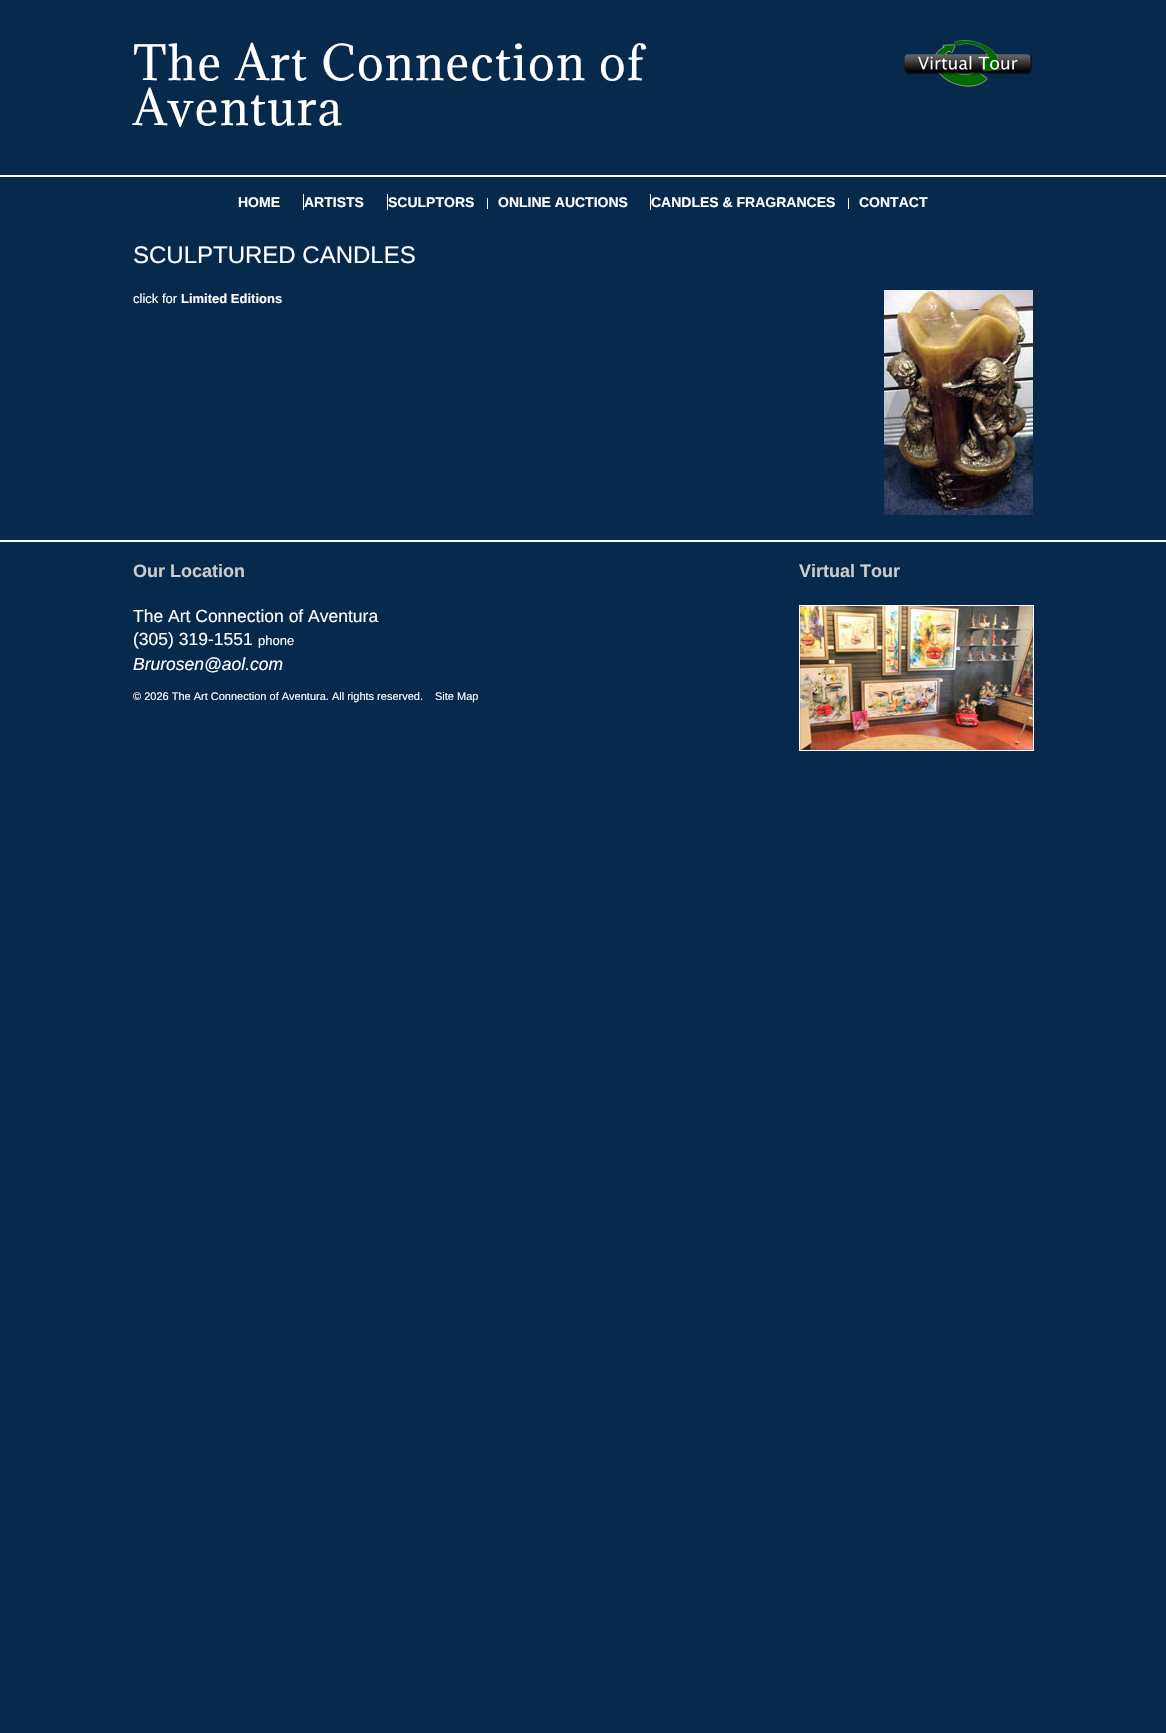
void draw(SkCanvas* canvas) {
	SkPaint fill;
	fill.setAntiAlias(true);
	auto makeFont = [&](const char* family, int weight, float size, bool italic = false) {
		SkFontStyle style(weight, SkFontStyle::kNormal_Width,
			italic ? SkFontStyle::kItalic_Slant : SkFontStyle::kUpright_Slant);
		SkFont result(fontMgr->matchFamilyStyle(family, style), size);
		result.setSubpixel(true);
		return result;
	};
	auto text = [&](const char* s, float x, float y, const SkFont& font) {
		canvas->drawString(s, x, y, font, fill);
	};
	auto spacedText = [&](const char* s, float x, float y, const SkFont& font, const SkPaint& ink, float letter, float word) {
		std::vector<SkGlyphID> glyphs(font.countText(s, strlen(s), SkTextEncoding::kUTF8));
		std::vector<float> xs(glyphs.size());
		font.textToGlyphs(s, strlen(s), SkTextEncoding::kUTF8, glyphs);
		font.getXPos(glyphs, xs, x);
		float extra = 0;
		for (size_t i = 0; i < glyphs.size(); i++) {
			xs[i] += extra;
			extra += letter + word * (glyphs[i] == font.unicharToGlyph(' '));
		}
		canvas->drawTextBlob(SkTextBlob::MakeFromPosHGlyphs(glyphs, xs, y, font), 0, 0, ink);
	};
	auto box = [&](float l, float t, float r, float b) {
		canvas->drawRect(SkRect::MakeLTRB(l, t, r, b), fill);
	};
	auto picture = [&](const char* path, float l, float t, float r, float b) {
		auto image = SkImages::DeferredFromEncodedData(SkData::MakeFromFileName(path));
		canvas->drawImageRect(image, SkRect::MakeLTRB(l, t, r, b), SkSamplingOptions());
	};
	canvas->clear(0xFF07294B);
	fill.setColor(0xFFFFFFFF);
	box(0, 175, 1166, 177);
	picture("image0.png", 904, 40, 1033, 87);
	box(303, 194, 304, 210);
	box(387, 194, 388, 210);
	box(487, 198, 488, 209);
	box(650, 194, 651, 210);
	box(848, 198, 849, 209);
	picture("image1.png", 884, 290, 1033, 515);
	box(0, 540, 1166, 542);
	fill.setStyle(SkPaint::kStroke_Style);
	fill.setStrokeWidth(1);
	canvas->drawRect(SkRect::MakeLTRB(799.5f, 605.5f, 1033.5f, 750.5f), fill);
	picture("image2.png", 800, 606, 1033, 750);
	auto font1 = makeFont("Adamina", 400, 45);
	fill.setStyle(SkPaint::kFill_Style);
	spacedText("The Art Connection of", 133, 80, font1, fill, 1.5f, 0);
	spacedText("Aventura", 133, 125, font1, fill, 1.5f, 0);
	auto font2 = makeFont("Liberation Sans", 700, 14);
	text("HOME", 238, 207, font2);
	text("ARTISTS", 304, 207, font2);
	text("SCULPTORS", 388, 207, font2);
	text("ONLINE AUCTIONS", 498, 207, font2);
	text("CANDLES & FRAGRANCES", 651, 207, font2);
	text("CONTACT", 859, 207, font2);
	auto font3 = makeFont("Liberation Sans", 400, 24);
	text("SCULPTURED CANDLES", 133, 263, font3);
	auto font4 = makeFont("Liberation Sans", 400, 13);
	text("click for", 133, 303, font4);
	auto font5 = makeFont("Liberation Sans", 700, 13);
	text("Limited Editions", 181, 303, font5);
	auto font6 = makeFont("Liberation Sans", 700, 18);
	fill.setColor(0xFFCCCCCC);
	text("Our Location", 133, 577, font6);
	auto font7 = makeFont("Liberation Sans", 400, 17.5f);
	fill.setColor(0xFFFFFFFF);
	text("The Art Connection of Aventura", 133, 622, font7);
	text("(305) 319-1551", 133, 645, font7);
	text("phone", 258, 645, font4);
	auto font8 = makeFont("Liberation Sans", 400, 17.5f, true);
	text("Brurosen@aol.com", 133, 670, font8);
	fill.setColor(0xFFCCCCCC);
	text("Virtual Tour", 799, 577, font6);
	auto font9 = makeFont("Liberation Sans", 400, 11);
	fill.setColor(0xFFFFFFFF);
	text("© 2026 The Art Connection of Aventura. All rights reserved.", 133, 700, font9);
	text("Site Map", 435, 700, font9);
}
